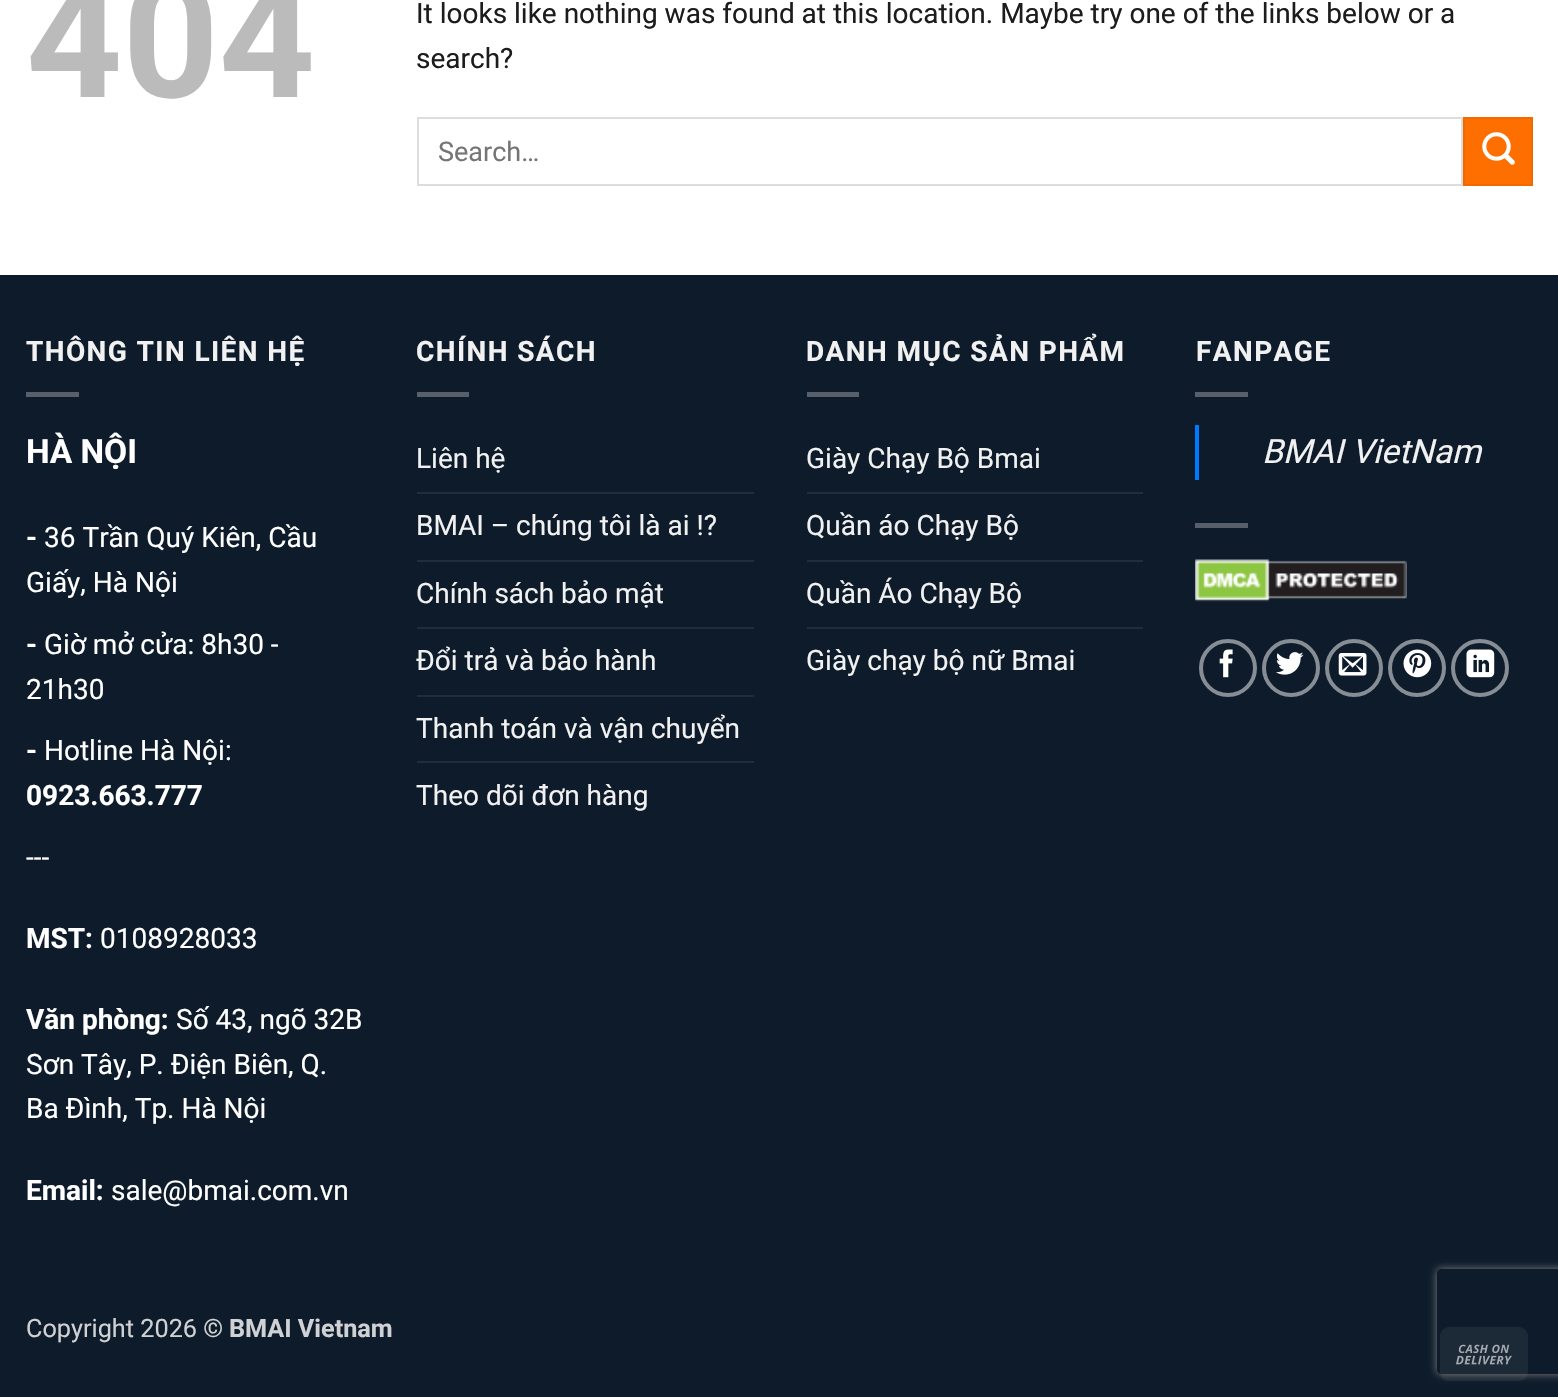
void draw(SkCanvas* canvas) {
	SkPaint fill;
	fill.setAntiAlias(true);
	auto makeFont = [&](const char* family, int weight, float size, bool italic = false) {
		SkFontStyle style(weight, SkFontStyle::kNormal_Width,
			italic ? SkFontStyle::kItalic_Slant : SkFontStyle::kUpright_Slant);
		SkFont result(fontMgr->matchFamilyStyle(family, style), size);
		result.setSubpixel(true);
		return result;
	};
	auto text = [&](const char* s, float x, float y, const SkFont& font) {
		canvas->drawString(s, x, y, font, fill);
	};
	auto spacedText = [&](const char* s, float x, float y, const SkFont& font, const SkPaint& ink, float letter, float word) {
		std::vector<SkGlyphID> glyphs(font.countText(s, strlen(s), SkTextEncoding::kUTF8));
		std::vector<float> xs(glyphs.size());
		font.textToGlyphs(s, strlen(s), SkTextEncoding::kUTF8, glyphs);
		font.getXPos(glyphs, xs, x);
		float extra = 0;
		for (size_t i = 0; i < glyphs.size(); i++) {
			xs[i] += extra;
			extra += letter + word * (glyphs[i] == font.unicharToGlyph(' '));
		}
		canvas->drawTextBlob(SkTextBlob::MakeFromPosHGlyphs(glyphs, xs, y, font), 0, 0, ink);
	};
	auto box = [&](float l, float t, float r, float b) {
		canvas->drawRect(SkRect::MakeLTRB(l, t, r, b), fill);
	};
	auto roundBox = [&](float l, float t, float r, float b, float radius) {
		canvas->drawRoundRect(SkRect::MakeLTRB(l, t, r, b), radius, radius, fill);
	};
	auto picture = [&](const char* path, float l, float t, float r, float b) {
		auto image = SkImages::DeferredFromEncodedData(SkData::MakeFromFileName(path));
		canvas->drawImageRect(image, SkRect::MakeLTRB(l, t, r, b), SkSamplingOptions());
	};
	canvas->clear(0xFFFFFFFF);
	fill.setStyle(SkPaint::kStroke_Style);
	fill.setStrokeWidth(2);
	fill.setColor(0xFFDDDDDD);
	canvas->drawRect(SkRect::MakeLTRB(418, 118, 1462, 185), fill);
	fill.setStyle(SkPaint::kFill_Style);
	fill.setColor(0xFFFF6F00);
	canvas->drawRect(SkRect::MakeLTRB(1464, 118, 1532, 185), fill);
	fill.setStyle(SkPaint::kStroke_Style);
	fill.setColor(0xFFF26900);
	canvas->drawRect(SkRect::MakeLTRB(1464, 118, 1532, 185), fill);
	picture("image0.png", 1482, 132, 1515, 165);
	fill.setStyle(SkPaint::kFill_Style);
	fill.setColor(0xFF0D1B2A);
	box(0, 277, 1558, 1397);
	fill.setColor(0xFF0C1A28);
	box(0, 275, 1558, 277);
	fill.setColor(0xFF565F6A);
	box(26, 392, 79, 397);
	box(417, 392, 469, 397);
	fill.setColor(0xFF202D3B);
	box(417, 492, 754, 494);
	box(417, 560, 754, 562);
	box(417, 627, 754, 629);
	box(417, 695, 754, 697);
	box(417, 761, 754, 763);
	fill.setColor(0xFF565F6A);
	box(807, 392, 859, 397);
	fill.setColor(0xFF202D3B);
	box(807, 492, 1143, 494);
	box(807, 560, 1143, 562);
	box(807, 627, 1143, 629);
	fill.setColor(0xFF565F6A);
	box(1195, 392, 1248, 397);
	fill.setColor(0xFF007BFF);
	box(1195, 425, 1199, 480);
	fill.setColor(0xFF565F6A);
	box(1195, 523, 1248, 528);
	picture("image1.png", 1195, 559, 1407, 602);
	fill.setStyle(SkPaint::kStroke_Style);
	fill.setStrokeWidth(4);
	fill.setColor(0xFF868D95);
	canvas->drawCircle(1228, 668, 27, fill);
	picture("image2.png", 1219, 649, 1233, 678);
	canvas->drawCircle(1291, 668, 27, fill);
	picture("image3.png", 1276, 652, 1304, 675);
	canvas->drawCircle(1354, 668, 27, fill);
	picture("image4.png", 1338, 653, 1367, 676);
	canvas->drawCircle(1417, 668, 27, fill);
	picture("image5.png", 1403, 649, 1432, 678);
	canvas->drawCircle(1480, 668, 27, fill);
	picture("image6.png", 1466, 649, 1495, 678);
	fill.setStyle(SkPaint::kFill_Style);
	fill.setColor(0xFF1C2937);
	roundBox(1440, 1327, 1528, 1381, 9);
	picture("image7.png", 1456, 1344, 1512, 1365);
	canvas->save();
	canvas->clipPath(SkPathBuilder(SkPathFillType::kEvenOdd).moveTo(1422, 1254).lineTo(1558, 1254).lineTo(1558, 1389).lineTo(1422, 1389).close().moveTo(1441, 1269).lineTo(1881, 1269).cubicTo(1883, 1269, 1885, 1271, 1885, 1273).lineTo(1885, 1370).cubicTo(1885, 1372, 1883, 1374, 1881, 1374).lineTo(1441, 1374).cubicTo(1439, 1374, 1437, 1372, 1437, 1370).lineTo(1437, 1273).cubicTo(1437, 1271, 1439, 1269, 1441, 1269).close().detach(), true);
	fill.setColor(0xFF808080);
	fill.setMaskFilter(SkMaskFilter::MakeBlur(kNormal_SkBlurStyle, 4.5f));
	canvas->drawRoundRect(SkRect::MakeLTRB(1437, 1269, 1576, 1374), 4, 4, fill);
	fill.setMaskFilter(nullptr);
	canvas->restore();
	auto font1 = makeFont("Roboto", 700, 168);
	fill.setColor(0xFFBBBBBB);
	text("404", 26, 97, font1);
	auto font2 = makeFont("Roboto", 400, 28);
	fill.setColor(0xFF1C1C1C);
	text("It looks like nothing was found at this location. Maybe try one of the links below or a", 416, 23, font2);
	text("search?", 416, 68, font2);
	auto font3 = makeFont("Roboto", 400, 27);
	fill.setColor(0xFF757575);
	text("Search…", 438, 161, font3);
	auto font4 = makeFont("Roboto", 700, 28);
	fill.setColor(0xFFF1F1F1);
	spacedText("THÔNG TIN LIÊN HỆ", 26, 361, font4, fill, 1.4f, 0);
	auto font5 = makeFont("Roboto", 700, 33.5f);
	fill.setColor(0xFFFFFFFF);
	text("HÀ NỘI", 26, 463, font5);
	text("-", 26, 547, font4);
	text("36 Trần Quý Kiên, Cầu", 44, 547, font2);
	text("Giấy, Hà Nội", 26, 592, font2);
	text("-", 26, 654, font4);
	text("Giờ mở cửa: 8h30 -", 44, 654, font2);
	text("21h30", 26, 699, font2);
	text("-", 26, 760, font4);
	text("Hotline Hà Nội:", 44, 760, font2);
	text("0923.663.777", 26, 805, font4);
	text("---", 26, 867, font2);
	text("MST:", 26, 948, font4);
	text("0108928033", 100, 948, font2);
	text("Văn phòng:", 26, 1029, font4);
	text("Số 43, ngõ 32B", 176, 1029, font2);
	text("Sơn Tây, P. Điện Biên, Q.", 26, 1074, font2);
	text("Ba Đình, Tp. Hà Nội", 26, 1118, font2);
	text("Email:", 26, 1200, font4);
	text("sale@bmai.com.vn", 111, 1200, font2);
	fill.setColor(0xFFF1F1F1);
	spacedText("CHÍNH SÁCH", 416, 361, font4, fill, 1.4f, 0);
	text("Liên hệ", 416, 468, font2);
	text("BMAI – chúng tôi là ai !?", 416, 535, font2);
	text("Chính sách bảo mật", 416, 603, font2);
	text("Đổi trả và bảo hành", 416, 670, font2);
	text("Thanh toán và vận chuyển", 416, 738, font2);
	text("Theo dõi đơn hàng", 416, 805, font2);
	spacedText("DANH MỤC SẢN PHẨM", 806, 361, font4, fill, 1.4f, 0);
	text("Giày Chạy Bộ Bmai", 806, 468, font2);
	text("Quần áo Chạy Bộ", 806, 535, font2);
	text("Quần Áo Chạy Bộ", 806, 603, font2);
	text("Giày chạy bộ nữ Bmai", 806, 670, font2);
	spacedText("FANPAGE", 1196, 361, font4, fill, 1.4f, 0);
	auto font6 = makeFont("Roboto", 400, 33.5f, true);
	text("BMAI VietNam", 1262, 463, font6);
	auto font7 = makeFont("Roboto", 400, 25.25f);
	fill.setColor(0xFFCFD1D4);
	text("Copyright 2026 ©", 26, 1337, font7);
	auto font8 = makeFont("Roboto", 700, 25.25f);
	text("BMAI Vietnam", 229, 1337, font8);
}
